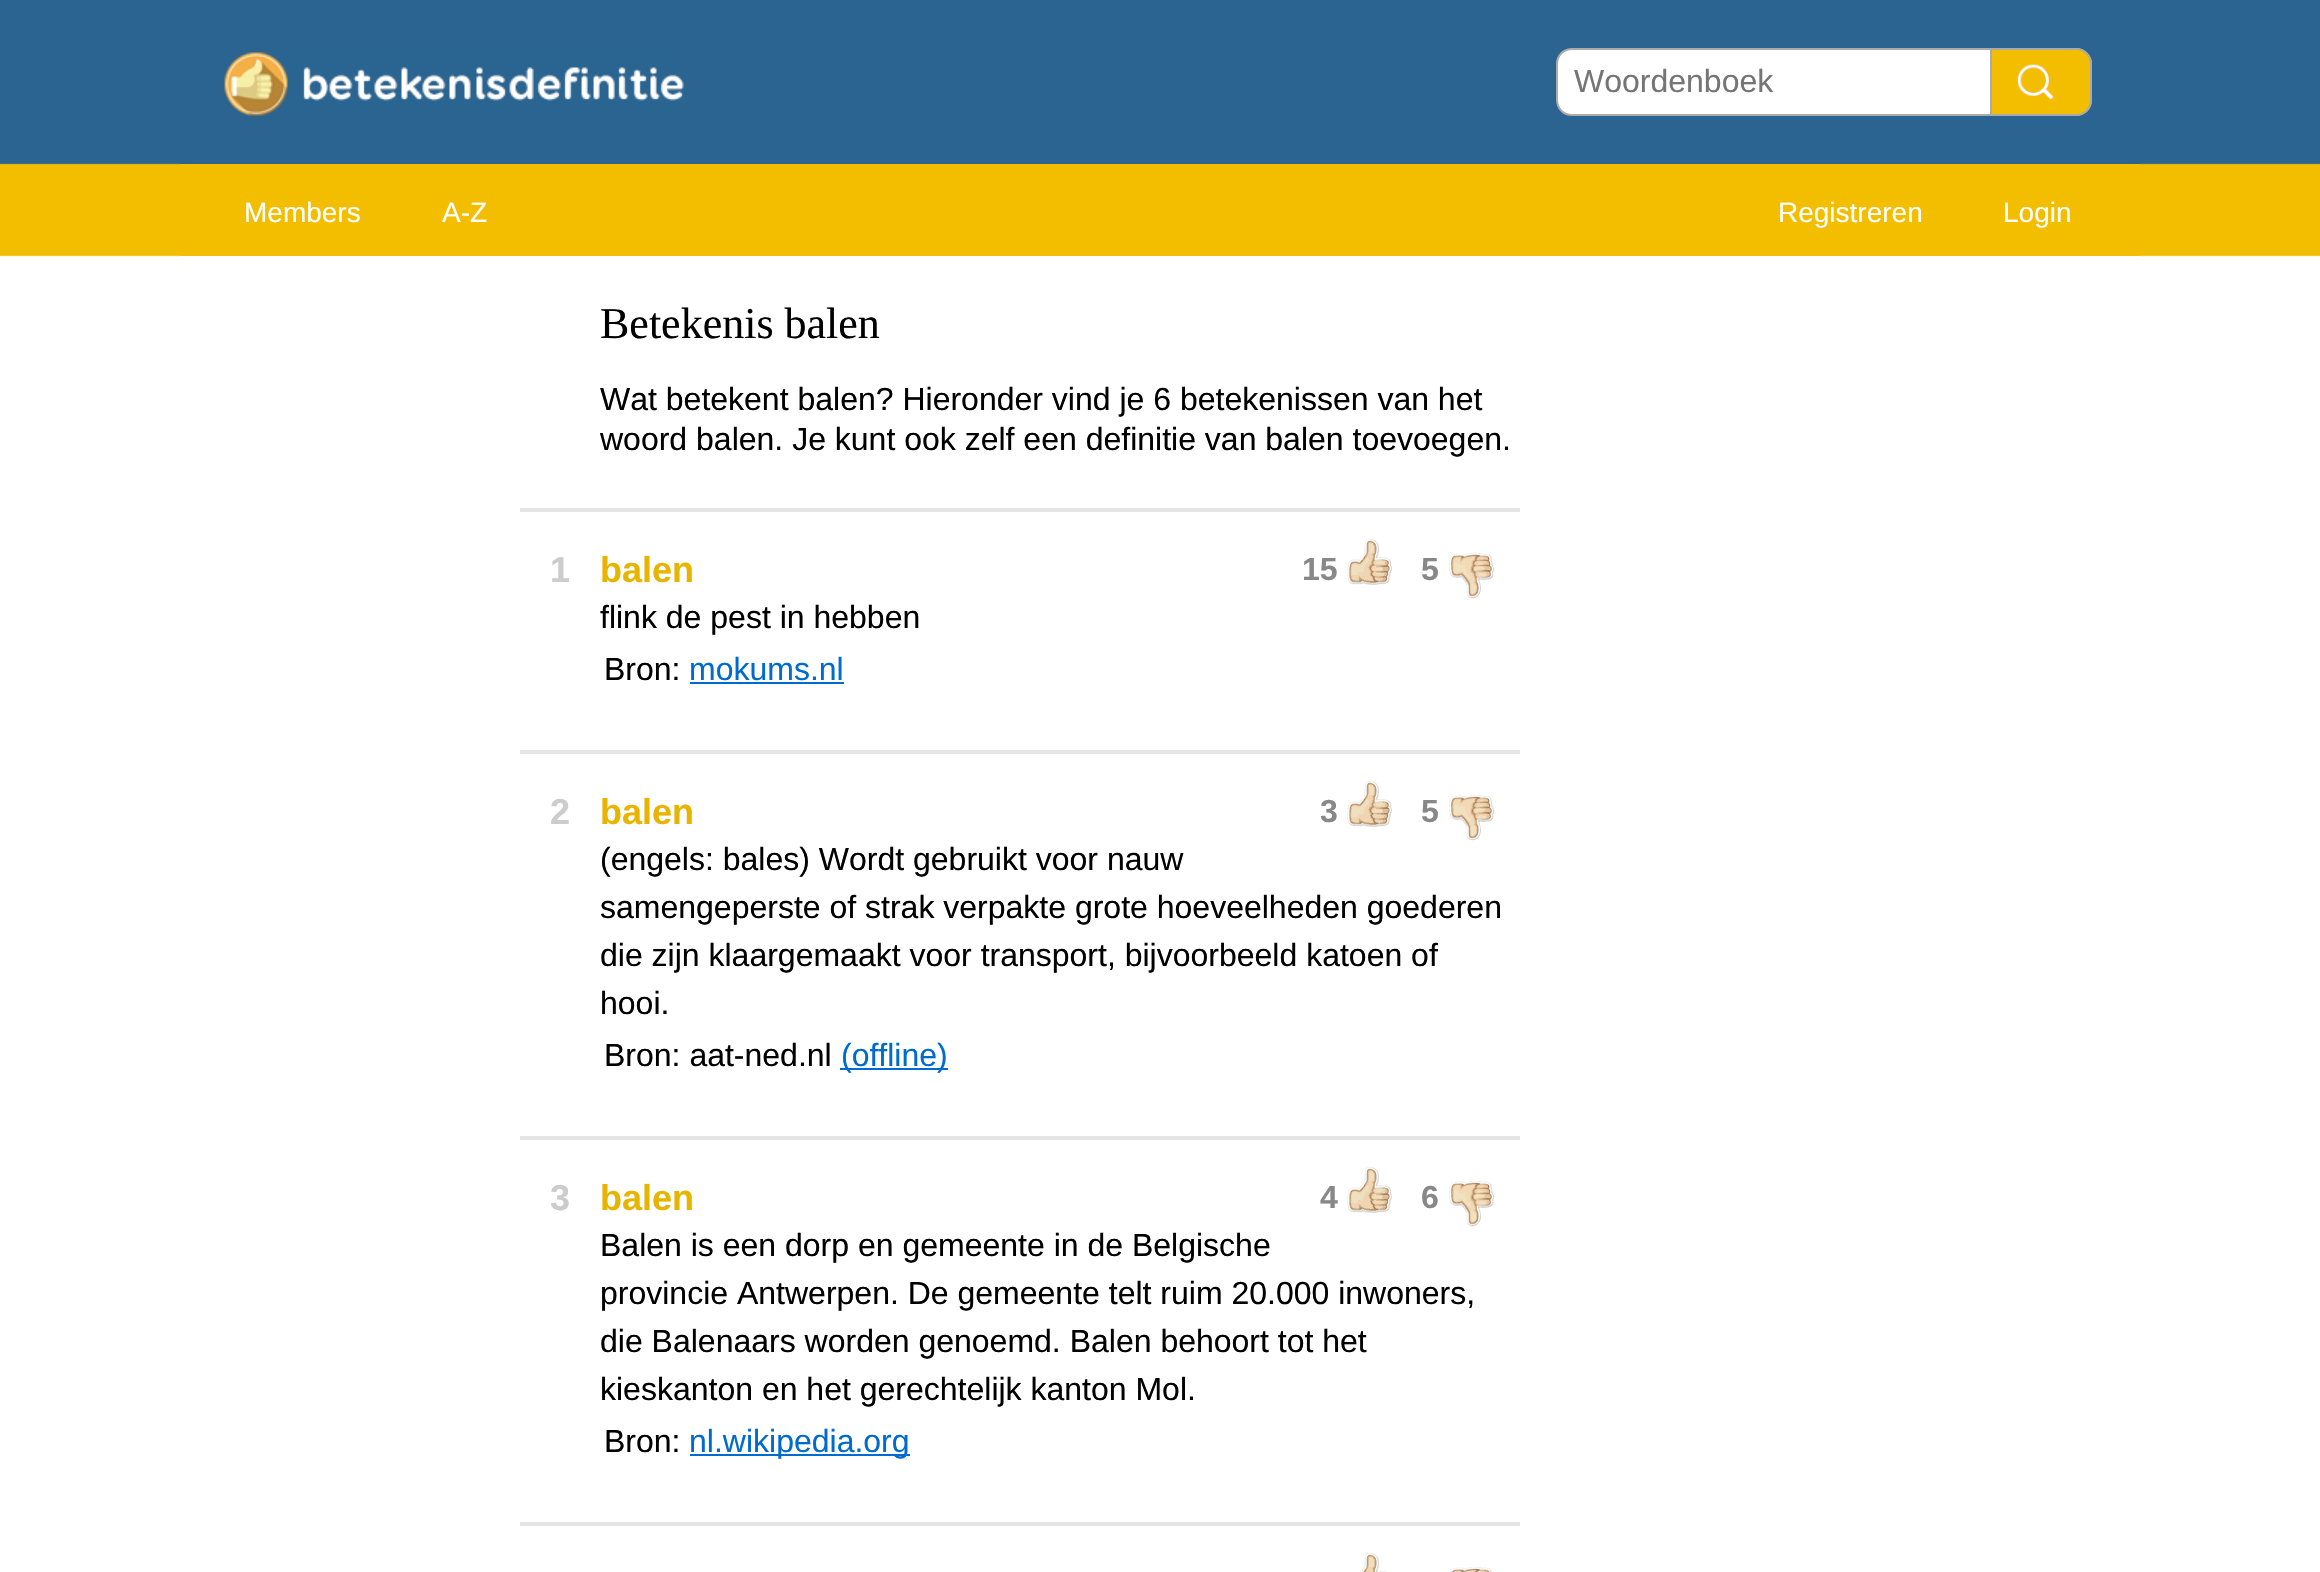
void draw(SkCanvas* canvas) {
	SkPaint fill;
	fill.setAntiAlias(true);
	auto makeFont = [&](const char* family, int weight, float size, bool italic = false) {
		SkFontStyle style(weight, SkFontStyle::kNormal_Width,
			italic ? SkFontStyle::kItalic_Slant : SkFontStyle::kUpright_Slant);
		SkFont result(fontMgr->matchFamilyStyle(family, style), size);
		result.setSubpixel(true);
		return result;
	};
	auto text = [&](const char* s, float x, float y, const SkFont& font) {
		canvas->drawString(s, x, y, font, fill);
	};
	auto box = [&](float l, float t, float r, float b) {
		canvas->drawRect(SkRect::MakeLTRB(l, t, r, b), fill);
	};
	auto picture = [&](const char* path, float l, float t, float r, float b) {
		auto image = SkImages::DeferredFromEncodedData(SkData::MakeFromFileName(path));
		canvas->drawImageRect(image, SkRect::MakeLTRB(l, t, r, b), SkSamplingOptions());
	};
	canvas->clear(0xFFFFFFFF);
	picture("image0.png", 0, 0, 2320, 257);
	fill.setColor(0xFFFFFFFF);
	box(180, 256, 2140, 257);
	fill.setColor(0xFF2B6491);
	box(180, 163, 2140, 164);
	picture("image1.png", 224, 52, 684, 116);
	fill.setColor(0xFFFFFFFF);
	canvas->drawPath(SkPathBuilder().moveTo(1572, 49).lineTo(1991, 49).lineTo(1991, 115).lineTo(1572, 115).cubicTo(1563.5f, 115, 1557, 108.5f, 1557, 100).lineTo(1557, 64).cubicTo(1557, 55.5f, 1563.5f, 49, 1572, 49).close().detach(), fill);
	fill.setStyle(SkPaint::kStroke_Style);
	fill.setStrokeWidth(2);
	fill.setColor(0xFFAAAAAA);
	canvas->drawPath(SkPathBuilder().moveTo(1572, 49).lineTo(1991, 49).lineTo(1991, 115).lineTo(1572, 115).cubicTo(1563.5f, 115, 1557, 108.5f, 1557, 100).lineTo(1557, 64).cubicTo(1557, 55.5f, 1563.5f, 49, 1572, 49).close().detach(), fill);
	fill.setStyle(SkPaint::kFill_Style);
	fill.setColor(0xFFF3BD00);
	canvas->drawPath(SkPathBuilder().moveTo(1992, 48).lineTo(2076, 48).cubicTo(2085, 48, 2092, 55, 2092, 64).lineTo(2092, 100).cubicTo(2092, 109, 2085, 116, 2076, 116).lineTo(1992, 116).close().detach(), fill);
	picture("image2.png", 2017, 64, 2054, 100);
	fill.setColor(0xFFAAAAAA);
	canvas->drawPath(SkPathBuilder(SkPathFillType::kEvenOdd).moveTo(1992, 48).lineTo(2076, 48).cubicTo(2085, 48, 2092, 55, 2092, 64).lineTo(2092, 100).cubicTo(2092, 109, 2085, 116, 2076, 116).lineTo(1992, 116).close().moveTo(1992, 50).lineTo(2076, 50).cubicTo(2084, 50, 2090, 56, 2090, 64).lineTo(2090, 100).cubicTo(2090, 108, 2084, 114, 2076, 114).lineTo(1992, 114).close().detach(), fill);
	fill.setColor(0xFFF3BD00);
	box(180, 164, 2140, 256);
	fill.setColor(0xFFE5E5E5);
	box(520, 508, 1520, 512);
	picture("image3.png", 1347, 539, 1392, 585);
	picture("image4.png", 1449, 552, 1495, 599);
	fill.setColor(0xFF006BCF);
	box(690, 682, 844, 684);
	fill.setColor(0xFFE5E5E5);
	box(520, 750, 1520, 754);
	picture("image3.png", 1347, 781, 1392, 827);
	picture("image4.png", 1449, 794, 1495, 841);
	fill.setColor(0xFF006BCF);
	box(840, 1068, 948, 1070);
	fill.setColor(0xFFE5E5E5);
	box(520, 1136, 1520, 1140);
	picture("image3.png", 1347, 1167, 1392, 1213);
	picture("image4.png", 1449, 1180, 1495, 1227);
	fill.setColor(0xFF006BCF);
	box(690, 1454, 910, 1456);
	fill.setColor(0xFFE5E5E5);
	box(520, 1522, 1520, 1526);
	picture("image5.png", 1361, 1553, 1387, 1572);
	picture("image6.png", 1450, 1566, 1492, 1572);
	auto font1 = makeFont("Liberation Sans", 400, 32);
	fill.setColor(0xFF757575);
	text("Woordenboek", 1574, 92, font1);
	auto font2 = makeFont("Liberation Sans", 400, 28);
	fill.setColor(0xFFFFFFFF);
	text("Members", 244, 222, font2);
	text("A-Z", 442, 222, font2);
	text("Registreren", 1778, 222, font2);
	text("Login", 2003, 222, font2);
	auto font3 = makeFont("Liberation Serif", 400, 44);
	fill.setColor(0xFF000000);
	text("Betekenis balen", 600, 338, font3);
	text("Wat betekent balen? Hieronder vind je 6 betekenissen van het", 600, 410, font1);
	text("woord balen. Je kunt ook zelf een definitie van balen toevoegen.", 600, 450, font1);
	auto font4 = makeFont("Liberation Sans", 700, 36);
	fill.setColor(0xFFCCCCCC);
	text("1", 550, 582, font4);
	fill.setColor(0xFFE7B400);
	text("balen", 600, 582, font4);
	auto font5 = makeFont("Liberation Sans", 700, 32);
	fill.setColor(0xFF888888);
	text("15", 1302, 580, font5);
	text("5", 1421, 580, font5);
	fill.setColor(0xFF000000);
	text("flink de pest in hebben", 600, 628, font1);
	text("Bron:", 604, 680, font1);
	fill.setColor(0xFF006BCF);
	text("mokums.nl", 689, 680, font1);
	fill.setColor(0xFFCCCCCC);
	text("2", 550, 824, font4);
	fill.setColor(0xFFE7B400);
	text("balen", 600, 824, font4);
	fill.setColor(0xFF888888);
	text("3", 1320, 822, font5);
	text("5", 1421, 822, font5);
	fill.setColor(0xFF000000);
	text("(engels: bales) Wordt gebruikt voor nauw", 600, 870, font1);
	text("samengeperste of strak verpakte grote hoeveelheden goederen", 600, 918, font1);
	text("die zijn klaargemaakt voor transport, bijvoorbeeld katoen of", 600, 966, font1);
	text("hooi.", 600, 1014, font1);
	text("Bron: aat-ned.nl", 604, 1066, font1);
	fill.setColor(0xFF006BCF);
	text("(offline)", 841, 1066, font1);
	fill.setColor(0xFFCCCCCC);
	text("3", 550, 1210, font4);
	fill.setColor(0xFFE7B400);
	text("balen", 600, 1210, font4);
	fill.setColor(0xFF888888);
	text("4", 1320, 1208, font5);
	text("6", 1421, 1208, font5);
	fill.setColor(0xFF000000);
	text("Balen is een dorp en gemeente in de Belgische", 600, 1256, font1);
	text("provincie Antwerpen. De gemeente telt ruim 20.000 inwoners,", 600, 1304, font1);
	text("die Balenaars worden genoemd. Balen behoort tot het", 600, 1352, font1);
	text("kieskanton en het gerechtelijk kanton Mol.", 600, 1400, font1);
	text("Bron:", 604, 1452, font1);
	fill.setColor(0xFF006BCF);
	text("nl.wikipedia.org", 689, 1452, font1);
}
